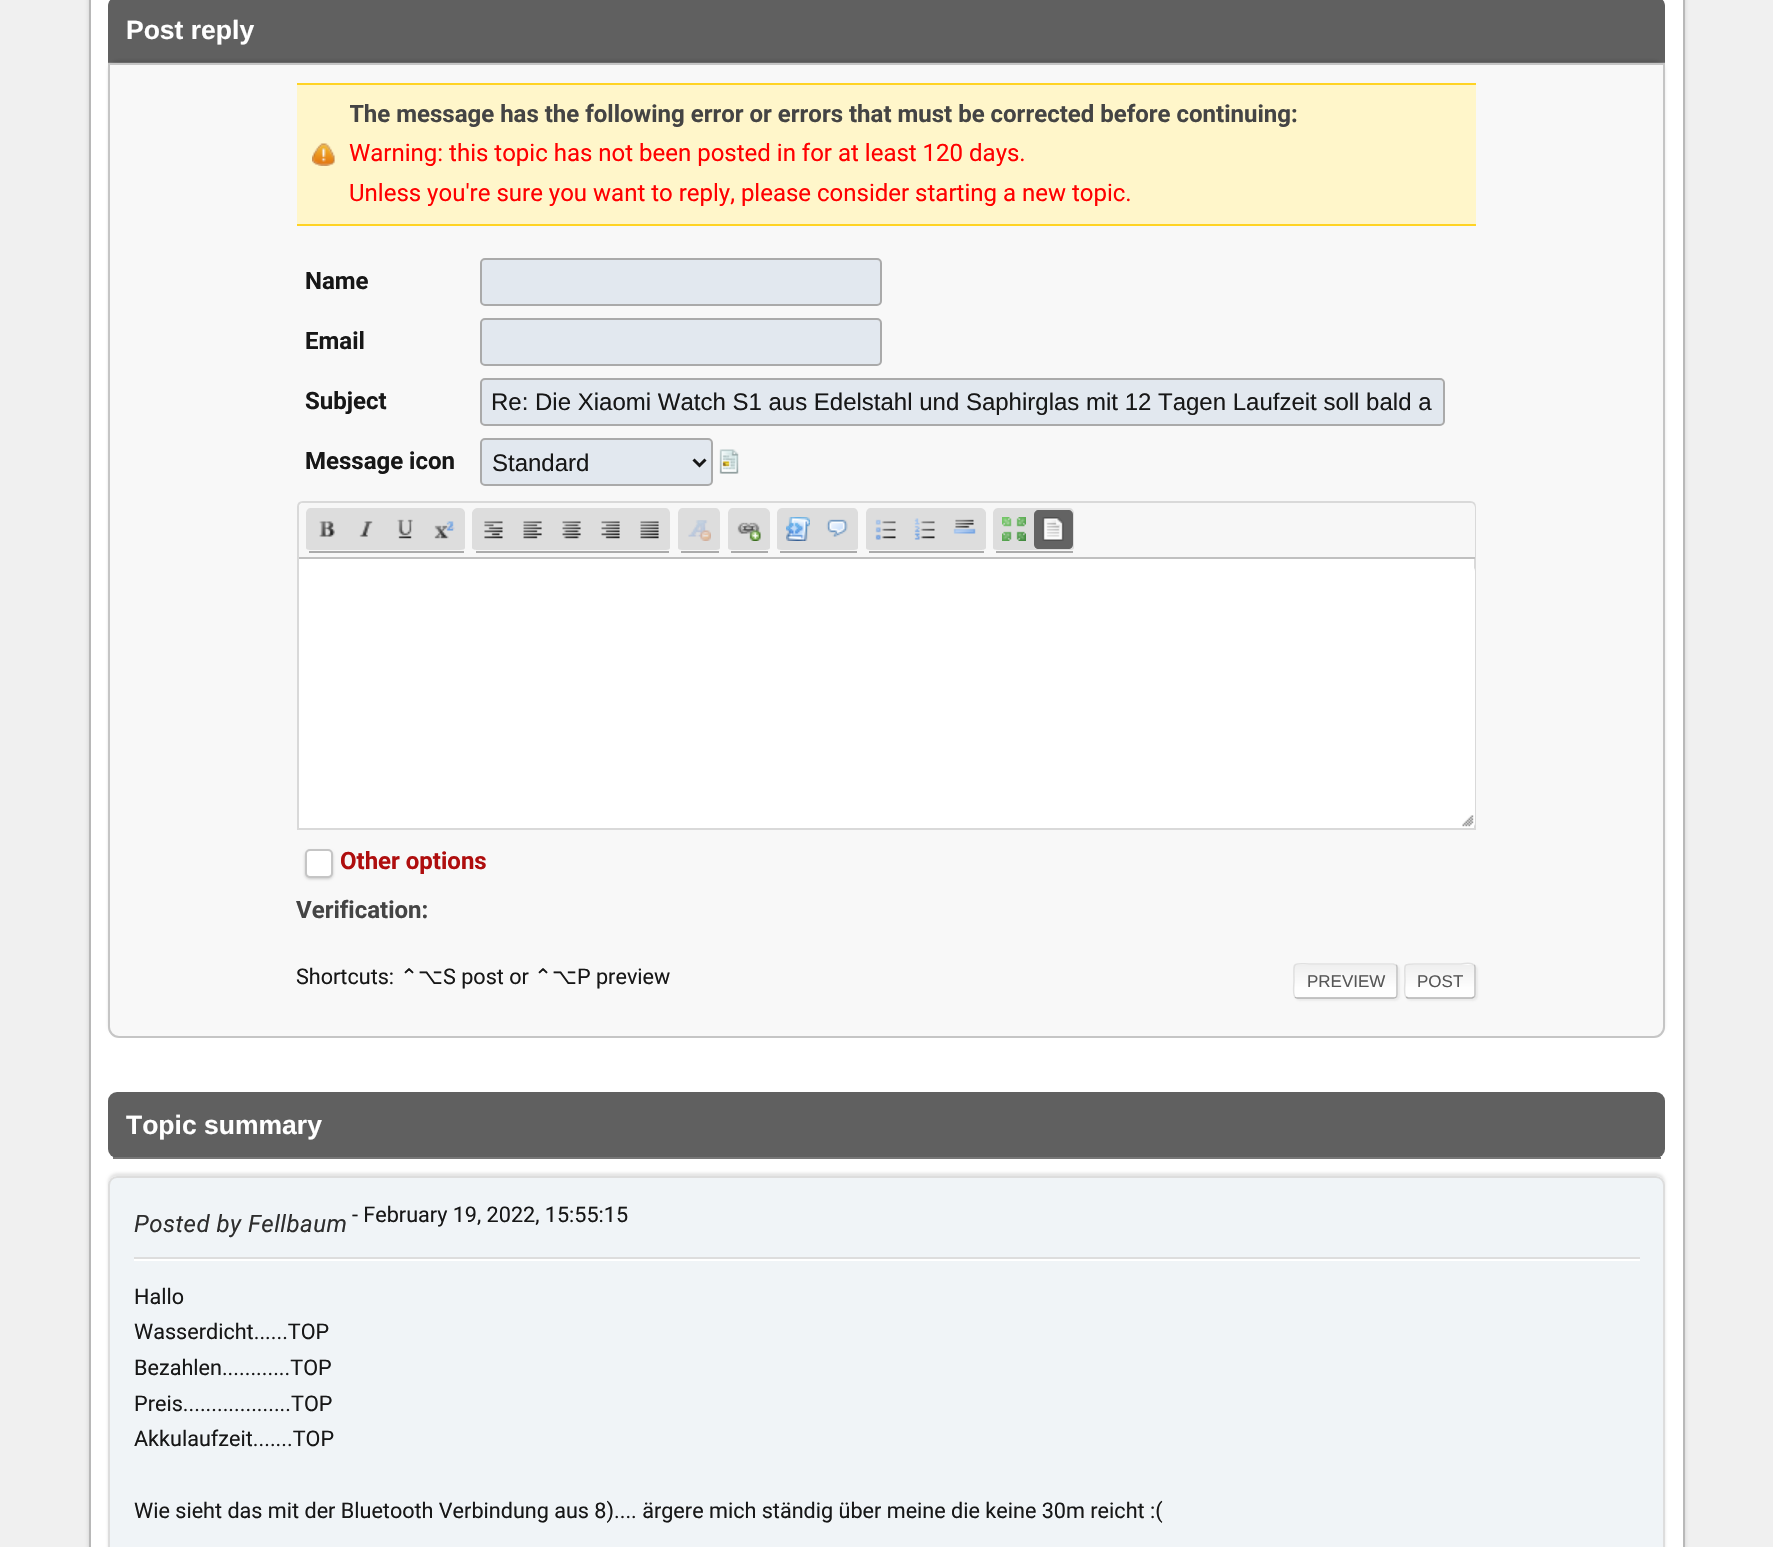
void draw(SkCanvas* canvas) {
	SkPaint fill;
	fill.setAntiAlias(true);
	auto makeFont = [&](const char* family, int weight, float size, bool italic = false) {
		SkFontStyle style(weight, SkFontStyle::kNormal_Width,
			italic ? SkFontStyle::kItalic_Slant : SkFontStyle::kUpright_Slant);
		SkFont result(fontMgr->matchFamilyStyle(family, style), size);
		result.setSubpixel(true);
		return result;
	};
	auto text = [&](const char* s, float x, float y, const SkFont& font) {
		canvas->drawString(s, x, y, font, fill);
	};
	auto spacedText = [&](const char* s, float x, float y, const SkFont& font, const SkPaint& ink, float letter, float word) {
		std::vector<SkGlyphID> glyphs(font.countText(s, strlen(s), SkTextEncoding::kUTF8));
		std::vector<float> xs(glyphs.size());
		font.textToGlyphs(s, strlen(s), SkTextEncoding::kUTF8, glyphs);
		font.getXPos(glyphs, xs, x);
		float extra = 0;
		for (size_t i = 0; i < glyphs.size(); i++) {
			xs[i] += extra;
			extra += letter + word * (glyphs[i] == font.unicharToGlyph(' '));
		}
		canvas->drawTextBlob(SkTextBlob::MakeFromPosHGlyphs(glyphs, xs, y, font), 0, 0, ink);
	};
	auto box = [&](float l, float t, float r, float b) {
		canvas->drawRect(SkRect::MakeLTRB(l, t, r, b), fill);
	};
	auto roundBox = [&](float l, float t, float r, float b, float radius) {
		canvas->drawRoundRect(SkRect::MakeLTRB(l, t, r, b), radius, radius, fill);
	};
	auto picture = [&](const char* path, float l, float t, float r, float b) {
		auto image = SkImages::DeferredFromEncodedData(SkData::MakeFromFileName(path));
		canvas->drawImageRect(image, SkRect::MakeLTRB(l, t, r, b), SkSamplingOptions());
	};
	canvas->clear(0xFFF0F0F0);
	fill.setColor(0x24000000);
	fill.setMaskFilter(SkMaskFilter::MakeBlur(kNormal_SkBlurStyle, 2));
	canvas->drawRoundRect(SkRect::MakeLTRB(89, -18, 1685, 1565), 12, 12, fill);
	fill.setMaskFilter(nullptr);
	fill.setColor(0xFFFFFFFF);
	canvas->drawRect(SkRect::MakeLTRB(90, -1, 1684, 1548), fill);
	fill.setStyle(SkPaint::kStroke_Style);
	fill.setStrokeWidth(2);
	fill.setColor(0xFFB8B8B8);
	canvas->drawRect(SkRect::MakeLTRB(90, -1, 1684, 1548), fill);
	fill.setStyle(SkPaint::kFill_Style);
	fill.setColor(0xFF606060);
	canvas->drawPath(SkPathBuilder().moveTo(117, -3).lineTo(1656, -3).cubicTo(1661, -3, 1665, 1, 1665, 6).lineTo(1665, 63).lineTo(108, 63).lineTo(108, 6).cubicTo(108, 1, 112, -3, 117, -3).close().detach(), fill);
	fill.setColor(0xFF777777);
	box(108, 62, 1665, 63);
	fill.setColor(0x1A000000);
	fill.setMaskFilter(SkMaskFilter::MakeBlur(kNormal_SkBlurStyle, 1.5f));
	canvas->drawRoundRect(SkRect::MakeLTRB(108, 60, 1665, 1035), 11, 11, fill);
	fill.setMaskFilter(nullptr);
	fill.setColor(0xFFF8F8F8);
	canvas->drawPath(SkPathBuilder().moveTo(109, 64).lineTo(1664, 64).lineTo(1664, 1027).cubicTo(1664, 1032.5f, 1659.5f, 1037, 1654, 1037).lineTo(119, 1037).cubicTo(113.5f, 1037, 109, 1032.5f, 109, 1027).close().detach(), fill);
	fill.setStyle(SkPaint::kStroke_Style);
	fill.setColor(0xFFC5C5C5);
	canvas->drawPath(SkPathBuilder().moveTo(109, 64).lineTo(1664, 64).lineTo(1664, 1027).cubicTo(1664, 1032.5f, 1659.5f, 1037, 1654, 1037).lineTo(119, 1037).cubicTo(113.5f, 1037, 109, 1032.5f, 109, 1027).close().detach(), fill);
	fill.setStyle(SkPaint::kFill_Style);
	fill.setColor(0xFFFFF6CA);
	box(297, 85, 1476, 224);
	fill.setColor(0xFFFFD324);
	box(297, 83, 1476, 85);
	box(297, 224, 1476, 226);
	picture("image0.png", 312, 143, 335, 166);
	fill.setColor(0xFFE2E8EF);
	canvas->drawPath(SkPathBuilder().moveTo(485, 260).cubicTo(480, 260, 482, 268, 482, 270).lineTo(482, 303).cubicTo(483, 304, 484, 305, 485, 305).lineTo(878, 305).cubicTo(883, 305, 881, 297, 881, 296).lineTo(881, 270).cubicTo(881, 268, 882, 260, 878, 260).close().detach(), fill);
	fill.setStyle(SkPaint::kStroke_Style);
	fill.setColor(0xFFAAAAAA);
	canvas->drawRoundRect(SkRect::MakeLTRB(481, 259, 881, 305), 4, 4, fill);
	fill.setStyle(SkPaint::kFill_Style);
	fill.setColor(0xFFE2E8EF);
	canvas->drawPath(SkPathBuilder().moveTo(485, 320).cubicTo(480, 320, 482, 328, 482, 330).lineTo(482, 363).cubicTo(483, 364, 484, 365, 485, 365).lineTo(878, 365).cubicTo(883, 365, 881, 357, 881, 356).lineTo(881, 330).cubicTo(881, 328, 882, 320, 878, 320).close().detach(), fill);
	fill.setStyle(SkPaint::kStroke_Style);
	fill.setColor(0xFFAAAAAA);
	canvas->drawRoundRect(SkRect::MakeLTRB(481, 319, 881, 365), 4, 4, fill);
	fill.setStyle(SkPaint::kFill_Style);
	fill.setColor(0xFFF3F3F3);
	roundBox(480, 378, 1445, 426, 5);
	fill.setColor(0xFFE2E8EF);
	canvas->drawPath(SkPathBuilder().moveTo(485, 380).cubicTo(480, 380, 482, 388, 482, 390).lineTo(482, 422).lineTo(483, 424).lineTo(485, 425).lineTo(1440, 425).lineTo(1442, 424).lineTo(1443, 422).lineTo(1443, 390).cubicTo(1443, 388, 1444, 380, 1440, 380).close().detach(), fill);
	fill.setStyle(SkPaint::kStroke_Style);
	fill.setColor(0xFFAAAAAA);
	canvas->drawRoundRect(SkRect::MakeLTRB(481, 379, 1444, 425), 4, 4, fill);
	fill.setStyle(SkPaint::kFill_Style);
	fill.setColor(0xFFE2E8EF);
	canvas->drawPath(SkPathBuilder().moveTo(485, 440).cubicTo(483, 440, 482, 441, 482, 443).lineTo(482, 482).cubicTo(482, 483, 482, 484, 483, 484).lineTo(485, 485).lineTo(708, 485).cubicTo(710, 485, 711, 484, 711, 482).lineTo(711, 443).cubicTo(711, 441, 710, 440, 708, 440).close().detach(), fill);
	fill.setStyle(SkPaint::kStroke_Style);
	fill.setColor(0xFFAAAAAA);
	canvas->drawRoundRect(SkRect::MakeLTRB(481, 439, 712, 485), 4, 4, fill);
	fill.setStrokeWidth(3);
	fill.setColor(0xFF171717);
	canvas->drawPath(SkPathBuilder().moveTo(693.5f, 459.5f).lineTo(699.5f, 465.5f).lineTo(705.5f, 459.5f).detach(), fill);
	picture("image1.png", 719, 449, 739, 474);
	fill.setStyle(SkPaint::kFill_Style);
	fill.setColor(0xFFFFFFFF);
	canvas->drawPath(SkPathBuilder().moveTo(303, 502).lineTo(1470, 502).cubicTo(1473, 502, 1475, 504, 1475, 507).lineTo(1475, 829).lineTo(298, 829).lineTo(298, 507).cubicTo(298, 504, 300, 502, 303, 502).close().detach(), fill);
	fill.setStyle(SkPaint::kStroke_Style);
	fill.setStrokeWidth(2);
	fill.setColor(0xFFD9D9D9);
	canvas->drawPath(SkPathBuilder().moveTo(303, 502).lineTo(1470, 502).cubicTo(1473, 502, 1475, 504, 1475, 507).lineTo(1475, 829).lineTo(298, 829).lineTo(298, 507).cubicTo(298, 504, 300, 502, 303, 502).close().detach(), fill);
	fill.setStyle(SkPaint::kFill_Style);
	fill.setColor(0xFFF7F7F7);
	canvas->drawPath(SkPathBuilder().moveTo(304, 503).lineTo(1470, 503).cubicTo(1473, 503, 1475, 505, 1475, 508).lineTo(1475, 557).lineTo(299, 557).lineTo(299, 508).cubicTo(299, 505, 301, 503, 304, 503).close().detach(), fill);
	fill.setColor(0xFFC0C0C0);
	box(299, 557, 1475, 559);
	fill.setColor(0xFFDDDDDD);
	canvas->drawPath(SkPathBuilder().moveTo(310, 508).lineTo(460, 508).cubicTo(463, 508, 465, 511, 465, 513).lineTo(465, 548).cubicTo(465, 549, 463, 550, 460, 550).lineTo(310, 550).cubicTo(308, 550, 306, 549, 306, 548).lineTo(306, 513).cubicTo(306, 511, 308, 508, 310, 508).close().detach(), fill);
	fill.setColor(0xFFAAAAAA);
	box(309, 551, 464, 553);
	picture("image2.png", 319, 521, 335, 537);
	picture("image3.png", 359, 521, 373, 537);
	picture("image4.png", 397, 519, 413, 539);
	picture("image5.png", 434, 521, 455, 539);
	fill.setColor(0xFFDDDDDD);
	canvas->drawPath(SkPathBuilder().moveTo(477, 508).lineTo(666, 508).cubicTo(668, 508, 670, 511, 670, 513).lineTo(670, 548).cubicTo(670, 549, 668, 550, 666, 550).lineTo(477, 550).cubicTo(475, 550, 472, 549, 472, 548).lineTo(472, 513).cubicTo(472, 511, 475, 508, 477, 508).close().detach(), fill);
	fill.setColor(0xFFAAAAAA);
	box(476, 551, 669, 553);
	picture("image6.png", 484, 521, 503, 539);
	picture("image7.png", 523, 521, 542, 539);
	picture("image8.png", 562, 521, 581, 539);
	picture("image9.png", 601, 521, 620, 539);
	picture("image10.png", 640, 521, 659, 539);
	fill.setColor(0xFFDDDDDD);
	canvas->drawPath(SkPathBuilder().moveTo(682, 508).lineTo(716, 508).cubicTo(718, 508, 720, 511, 720, 513).lineTo(720, 548).cubicTo(720, 549, 718, 550, 716, 550).lineTo(682, 550).cubicTo(680, 550, 678, 549, 678, 548).lineTo(678, 513).cubicTo(678, 511, 680, 508, 682, 508).close().detach(), fill);
	fill.setColor(0xFFAAAAAA);
	box(681, 551, 719, 553);
	picture("image11.png", 688, 520, 711, 541);
	fill.setColor(0xFFDDDDDD);
	canvas->drawPath(SkPathBuilder().moveTo(732, 508).lineTo(765, 508).cubicTo(767, 508, 770, 511, 770, 513).lineTo(770, 548).cubicTo(770, 549, 767, 550, 765, 550).lineTo(732, 550).cubicTo(730, 550, 728, 549, 728, 548).lineTo(728, 513).cubicTo(728, 511, 730, 508, 732, 508).close().detach(), fill);
	fill.setColor(0xFFAAAAAA);
	box(731, 551, 768, 553);
	picture("image12.png", 737, 522, 761, 541);
	fill.setColor(0xFFDDDDDD);
	canvas->drawPath(SkPathBuilder().moveTo(782, 508).lineTo(854, 508).cubicTo(856, 508, 858, 511, 858, 513).lineTo(858, 548).cubicTo(858, 549, 856, 550, 854, 550).lineTo(782, 550).cubicTo(779, 550, 777, 549, 777, 548).lineTo(777, 513).cubicTo(777, 511, 779, 508, 782, 508).close().detach(), fill);
	fill.setColor(0xFFAAAAAA);
	box(780, 551, 857, 553);
	picture("image13.png", 786, 517, 810, 541);
	picture("image14.png", 826, 519, 848, 537);
	fill.setColor(0xFFDDDDDD);
	canvas->drawPath(SkPathBuilder().moveTo(870, 508).lineTo(981, 508).cubicTo(983, 508, 986, 511, 986, 513).lineTo(986, 548).cubicTo(986, 549, 983, 550, 981, 550).lineTo(870, 550).cubicTo(868, 550, 866, 549, 866, 548).lineTo(866, 513).cubicTo(866, 511, 868, 508, 870, 508).close().detach(), fill);
	fill.setColor(0xFFAAAAAA);
	box(869, 551, 984, 553);
	picture("image15.png", 875, 519, 896, 540);
	picture("image16.png", 914, 518, 935, 540);
	picture("image17.png", 953, 519, 976, 534);
	fill.setColor(0xFFDDDDDD);
	canvas->drawPath(SkPathBuilder().moveTo(998, 508).lineTo(1070, 508).cubicTo(1072, 508, 1074, 511, 1074, 513).lineTo(1074, 548).cubicTo(1074, 549, 1072, 550, 1070, 550).lineTo(998, 550).cubicTo(995, 550, 993, 549, 993, 548).lineTo(993, 513).cubicTo(993, 511, 995, 508, 998, 508).close().detach(), fill);
	fill.setColor(0xFFAAAAAA);
	box(996, 551, 1073, 553);
	picture("image18.png", 1002, 517, 1026, 541);
	fill.setColor(0xFFFFFFFF);
	roundBox(1034, 510, 1073, 549, 5);
	fill.setColor(0x33000000);
	canvas->drawPath(SkPathBuilder().moveTo(1039, 510).cubicTo(1036, 510, 1034, 512, 1034, 515).lineTo(1034, 544).cubicTo(1034, 547, 1036, 549, 1039, 549).lineTo(1068, 549).cubicTo(1071, 549, 1073, 547, 1073, 544).lineTo(1073, 515).cubicTo(1073, 512, 1071, 510, 1068, 510).close().detach(), fill);
	fill.setColor(0x4D000000);
	canvas->drawPath(SkPathBuilder().moveTo(1039, 510).cubicTo(1036, 510, 1034, 512, 1034, 515).lineTo(1034, 544).cubicTo(1034, 547, 1036, 549, 1039, 549).lineTo(1068, 549).cubicTo(1071, 549, 1073, 547, 1073, 544).lineTo(1073, 515).cubicTo(1073, 512, 1071, 510, 1068, 510).close().detach(), fill);
	canvas->drawPath(SkPathBuilder().moveTo(1039, 510).cubicTo(1036, 510, 1034, 512, 1034, 515).lineTo(1034, 544).cubicTo(1034, 547, 1036, 549, 1039, 549).lineTo(1068, 549).cubicTo(1071, 549, 1073, 547, 1073, 544).lineTo(1073, 515).cubicTo(1073, 512, 1071, 510, 1068, 510).close().detach(), fill);
	picture("image19.png", 1042, 517, 1064, 541);
	fill.setColor(0xFFFFFFFF);
	roundBox(299, 566, 1475, 828, 5);
	picture("image20.png", 1462, 815, 1474, 827);
	fill.setColor(0x33000000);
	fill.setMaskFilter(SkMaskFilter::MakeBlur(kNormal_SkBlurStyle, 1.5f));
	canvas->drawRoundRect(SkRect::MakeLTRB(305, 851, 333, 879), 5, 5, fill);
	fill.setMaskFilter(nullptr);
	fill.setColor(0xFFFFFFFF);
	canvas->drawPath(SkPathBuilder().moveTo(309, 851).cubicTo(307.5f, 851, 306, 852.5f, 306, 854).lineTo(306, 873).cubicTo(306, 874.5f, 307.5f, 876, 309, 876).lineTo(329, 876).cubicTo(330.5f, 876, 332, 874.5f, 332, 873).lineTo(332, 854).cubicTo(332, 852.5f, 330.5f, 851, 329, 851).close().detach(), fill);
	fill.setStyle(SkPaint::kStroke_Style);
	fill.setColor(0xFFC5C5C5);
	canvas->drawRoundRect(SkRect::MakeLTRB(306, 850, 332, 877), 4, 4, fill);
	fill.setStyle(SkPaint::kFill_Style);
	fill.setColor(0x91E0E0E0);
	fill.setMaskFilter(SkMaskFilter::MakeBlur(kNormal_SkBlurStyle, 1));
	canvas->drawRoundRect(SkRect::MakeLTRB(1295, 965, 1400, 1001), 5, 5, fill);
	fill.setMaskFilter(nullptr);
	canvas->save();
	canvas->clipPath(SkPathBuilder().moveTo(1298, 963).lineTo(1393, 963).cubicTo(1396, 963, 1398, 965, 1398, 968).lineTo(1398, 994).cubicTo(1398, 997, 1396, 999, 1393, 999).lineTo(1298, 999).cubicTo(1295, 999, 1293, 997, 1293, 994).lineTo(1293, 968).cubicTo(1293, 965, 1295, 963, 1298, 963).close().detach(), true);
	{
		const SkColor colors[] = {0xFFEFEFEF, 0xFFFEFEFE};
		const float stops[] = {0, 0.7f};
		const SkPoint ends[] = {{1346, 932}, {1346, 965}};
		fill.setShader(SkGradientShader::MakeLinear(ends, colors, stops, 2, SkTileMode::kClamp));
		fill.setAlpha(255);
	}
	box(1293, 963, 1398, 965);
	{
		const SkColor colors[] = {0xFFEFEFEF, 0xFFFEFEFE};
		const float stops[] = {0, 0.7f};
		const SkPoint ends[] = {{1346, 965}, {1346, 998}};
		fill.setShader(SkGradientShader::MakeLinear(ends, colors, stops, 2, SkTileMode::kClamp));
		fill.setAlpha(255);
	}
	box(1293, 965, 1398, 998);
	canvas->restore();
	fill.setStyle(SkPaint::kStroke_Style);
	fill.setStrokeWidth(1.5f);
	fill.setShader(nullptr);
	fill.setColor(0xFFC1C1C1);
	canvas->drawPath(SkPathBuilder().moveTo(1396, 965).cubicTo(1397, 965.5f, 1397, 966.5f, 1397, 967.5f).lineTo(1397, 994.5f).cubicTo(1397, 995.5f, 1397, 996.5f, 1396, 997).detach(), fill);
	fill.setColor(0xFFB2B2B2);
	canvas->drawPath(SkPathBuilder().moveTo(1396, 997).cubicTo(1395.5f, 998, 1394.5f, 998, 1393.5f, 998).lineTo(1297.5f, 998).cubicTo(1296.5f, 998, 1295.5f, 998, 1295, 997).detach(), fill);
	fill.setColor(0xFFE0E0E0);
	canvas->drawPath(SkPathBuilder().moveTo(1295, 997).cubicTo(1292.5f, 995, 1294, 984, 1294, 981).cubicTo(1294, 960, 1291, 964, 1313.5f, 964).lineTo(1393.5f, 964).lineTo(1396, 965).detach(), fill);
	fill.setStyle(SkPaint::kFill_Style);
	fill.setColor(0x91E0E0E0);
	fill.setMaskFilter(SkMaskFilter::MakeBlur(kNormal_SkBlurStyle, 1));
	canvas->drawRoundRect(SkRect::MakeLTRB(1406, 965, 1478, 1001), 5, 5, fill);
	fill.setMaskFilter(nullptr);
	canvas->save();
	canvas->clipPath(SkPathBuilder().moveTo(1409, 963).lineTo(1471, 963).cubicTo(1474, 963, 1476, 965, 1476, 968).lineTo(1476, 994).cubicTo(1476, 997, 1474, 999, 1471, 999).lineTo(1409, 999).cubicTo(1406, 999, 1404, 997, 1404, 994).lineTo(1404, 968).cubicTo(1404, 965, 1406, 963, 1409, 963).close().detach(), true);
	{
		const SkColor colors[] = {0xFFEFEFEF, 0xFFFEFEFE};
		const float stops[] = {0, 0.7f};
		const SkPoint ends[] = {{1440, 932}, {1440, 965}};
		fill.setShader(SkGradientShader::MakeLinear(ends, colors, stops, 2, SkTileMode::kClamp));
		fill.setAlpha(255);
	}
	box(1404, 963, 1476, 965);
	{
		const SkColor colors[] = {0xFFEFEFEF, 0xFFFEFEFE};
		const float stops[] = {0, 0.7f};
		const SkPoint ends[] = {{1440, 965}, {1440, 998}};
		fill.setShader(SkGradientShader::MakeLinear(ends, colors, stops, 2, SkTileMode::kClamp));
		fill.setAlpha(255);
	}
	box(1404, 965, 1476, 998);
	{
		const SkColor colors[] = {0xFFEFEFEF, 0xFFFEFEFE};
		const float stops[] = {0, 0.7f};
		const SkPoint ends[] = {{1440, 998}, {1440, 1031}};
		fill.setShader(SkGradientShader::MakeLinear(ends, colors, stops, 2, SkTileMode::kClamp));
		fill.setAlpha(255);
	}
	box(1404, 998, 1476, 999);
	canvas->restore();
	fill.setStyle(SkPaint::kStroke_Style);
	fill.setShader(nullptr);
	fill.setColor(0xFFC1C1C1);
	canvas->drawPath(SkPathBuilder().moveTo(1474, 965).cubicTo(1475, 965.5f, 1475, 966.5f, 1475, 967.5f).lineTo(1475, 994.5f).cubicTo(1475, 995.5f, 1475, 996.5f, 1474, 997).detach(), fill);
	fill.setColor(0xFFB2B2B2);
	canvas->drawPath(SkPathBuilder().moveTo(1474, 997).lineTo(1472, 998).lineTo(1408, 998).lineTo(1406, 997).detach(), fill);
	fill.setColor(0xFFE0E0E0);
	canvas->drawPath(SkPathBuilder().moveTo(1406, 997).cubicTo(1403.5f, 995, 1405, 984, 1405, 981).cubicTo(1405, 962.5f, 1401.5f, 964, 1419, 964).lineTo(1461, 964).cubicTo(1461, 964, 1471.5f, 962, 1474, 965).detach(), fill);
	fill.setStyle(SkPaint::kFill_Style);
	fill.setColor(0xFF606060);
	roundBox(108, 1092, 1665, 1158, 9);
	fill.setColor(0xFF777777);
	box(113, 1157, 1661, 1159);
	canvas->save();
	canvas->clipPath(SkPathBuilder(SkPathFillType::kEvenOdd).moveTo(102, 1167).lineTo(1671, 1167).lineTo(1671, 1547).lineTo(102, 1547).close().moveTo(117, 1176).lineTo(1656, 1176).cubicTo(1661, 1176, 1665, 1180, 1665, 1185).lineTo(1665, 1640).cubicTo(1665, 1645, 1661, 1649, 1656, 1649).lineTo(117, 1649).cubicTo(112, 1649, 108, 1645, 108, 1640).lineTo(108, 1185).cubicTo(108, 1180, 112, 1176, 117, 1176).close().detach(), true);
	fill.setColor(0x1A000000);
	fill.setMaskFilter(SkMaskFilter::MakeBlur(kNormal_SkBlurStyle, 1.5f));
	canvas->drawRoundRect(SkRect::MakeLTRB(108, 1173, 1665, 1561), 9, 9, fill);
	fill.setMaskFilter(nullptr);
	canvas->restore();
	fill.setColor(0xFFF0F4F7);
	canvas->drawRoundRect(SkRect::MakeLTRB(109, 1177, 1664, 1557), 8, 8, fill);
	fill.setStyle(SkPaint::kStroke_Style);
	fill.setStrokeWidth(2);
	fill.setColor(0xFFDDDDDD);
	canvas->drawRoundRect(SkRect::MakeLTRB(109, 1177, 1664, 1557), 8, 8, fill);
	fill.setStyle(SkPaint::kFill_Style);
	fill.setColor(0xFFFFFFFF);
	box(134, 1259, 1640, 1261);
	fill.setColor(0xFFDDDDDD);
	box(134, 1257, 1640, 1259);
	auto font1 = makeFont("Liberation Sans", 700, 26.5f);
	fill.setColor(0xFFFFFFFF);
	text("Post reply", 126, 39, font1);
	canvas->save();
	canvas->clipRect(SkRect::MakeLTRB(350, 95, 1461, 213));
	auto font2 = makeFont("Roboto", 700, 24);
	fill.setColor(0xFF444444);
	text("The message has the following error or errors that must be corrected before continuing:", 349, 122, font2);
	canvas->restore();
	auto font3 = makeFont("Roboto", 400, 24);
	fill.setColor(0xFFFF0000);
	text("Warning: this topic has not been posted in for at least 120 days.", 349, 161, font3);
	text("Unless you're sure you want to reply, please consider starting a new topic.", 349, 201, font3);
	fill.setColor(0xFF171717);
	text("Name", 305, 289, font2);
	text("Email", 305, 349, font2);
	text("Subject", 305, 409, font2);
	auto font4 = makeFont("Liberation Sans", 400, 24);
	text("Re: Die Xiaomi Watch S1 aus Edelstahl und Saphirglas mit 12 Tagen Laufzeit soll bald a", 491, 410, font4);
	text("Message icon", 305, 469, font2);
	text("Standard", 492, 471, font4);
	fill.setColor(0xFFAF0E0E);
	text("Other options", 340, 869, font2);
	fill.setColor(0xFF444444);
	text("Verification:", 296, 918, font2);
	auto font5 = makeFont("Roboto", 400, 21.6f);
	fill.setColor(0xFF171717);
	text("Shortcuts:", 296, 984, font5);
	auto font6 = makeFont("DejaVu Sans", 400, 21.6f);
	text("⌃⌥", 400, 984, font6);
	text("S post or", 443, 984, font5);
	text("⌃⌥", 534, 984, font6);
	text("P preview", 577, 984, font5);
	auto font7 = makeFont("Liberation Sans", 400, 17);
	fill.setColor(0xFF565656);
	text("PREVIEW", 1307, 987, font7);
	text("POST", 1417, 987, font7);
	fill.setColor(0xFFFFFFFF);
	text("Topic summary", 126, 1134, font1);
	auto font8 = makeFont("Roboto", 400, 24, true);
	fill.setColor(0xFF2E2E2E);
	spacedText("Posted by Fellbaum", 134, 1232, font8, fill, 0.5f, 0);
	fill.setColor(0xFF171717);
	text("- February 19, 2022, 15:55:15", 352, 1222, font5);
	text("Hallo", 134, 1304, font5);
	text("Wasserdicht......TOP", 134, 1339, font5);
	text("Bezahlen............TOP", 134, 1375, font5);
	text("Preis...................TOP", 134, 1411, font5);
	text("Akkulaufzeit.......TOP", 134, 1446, font5);
	text("Wie sieht das mit der Bluetooth Verbindung aus 8).... ärgere mich ständig über meine die keine 30m reicht :(", 134, 1518, font5);
}
